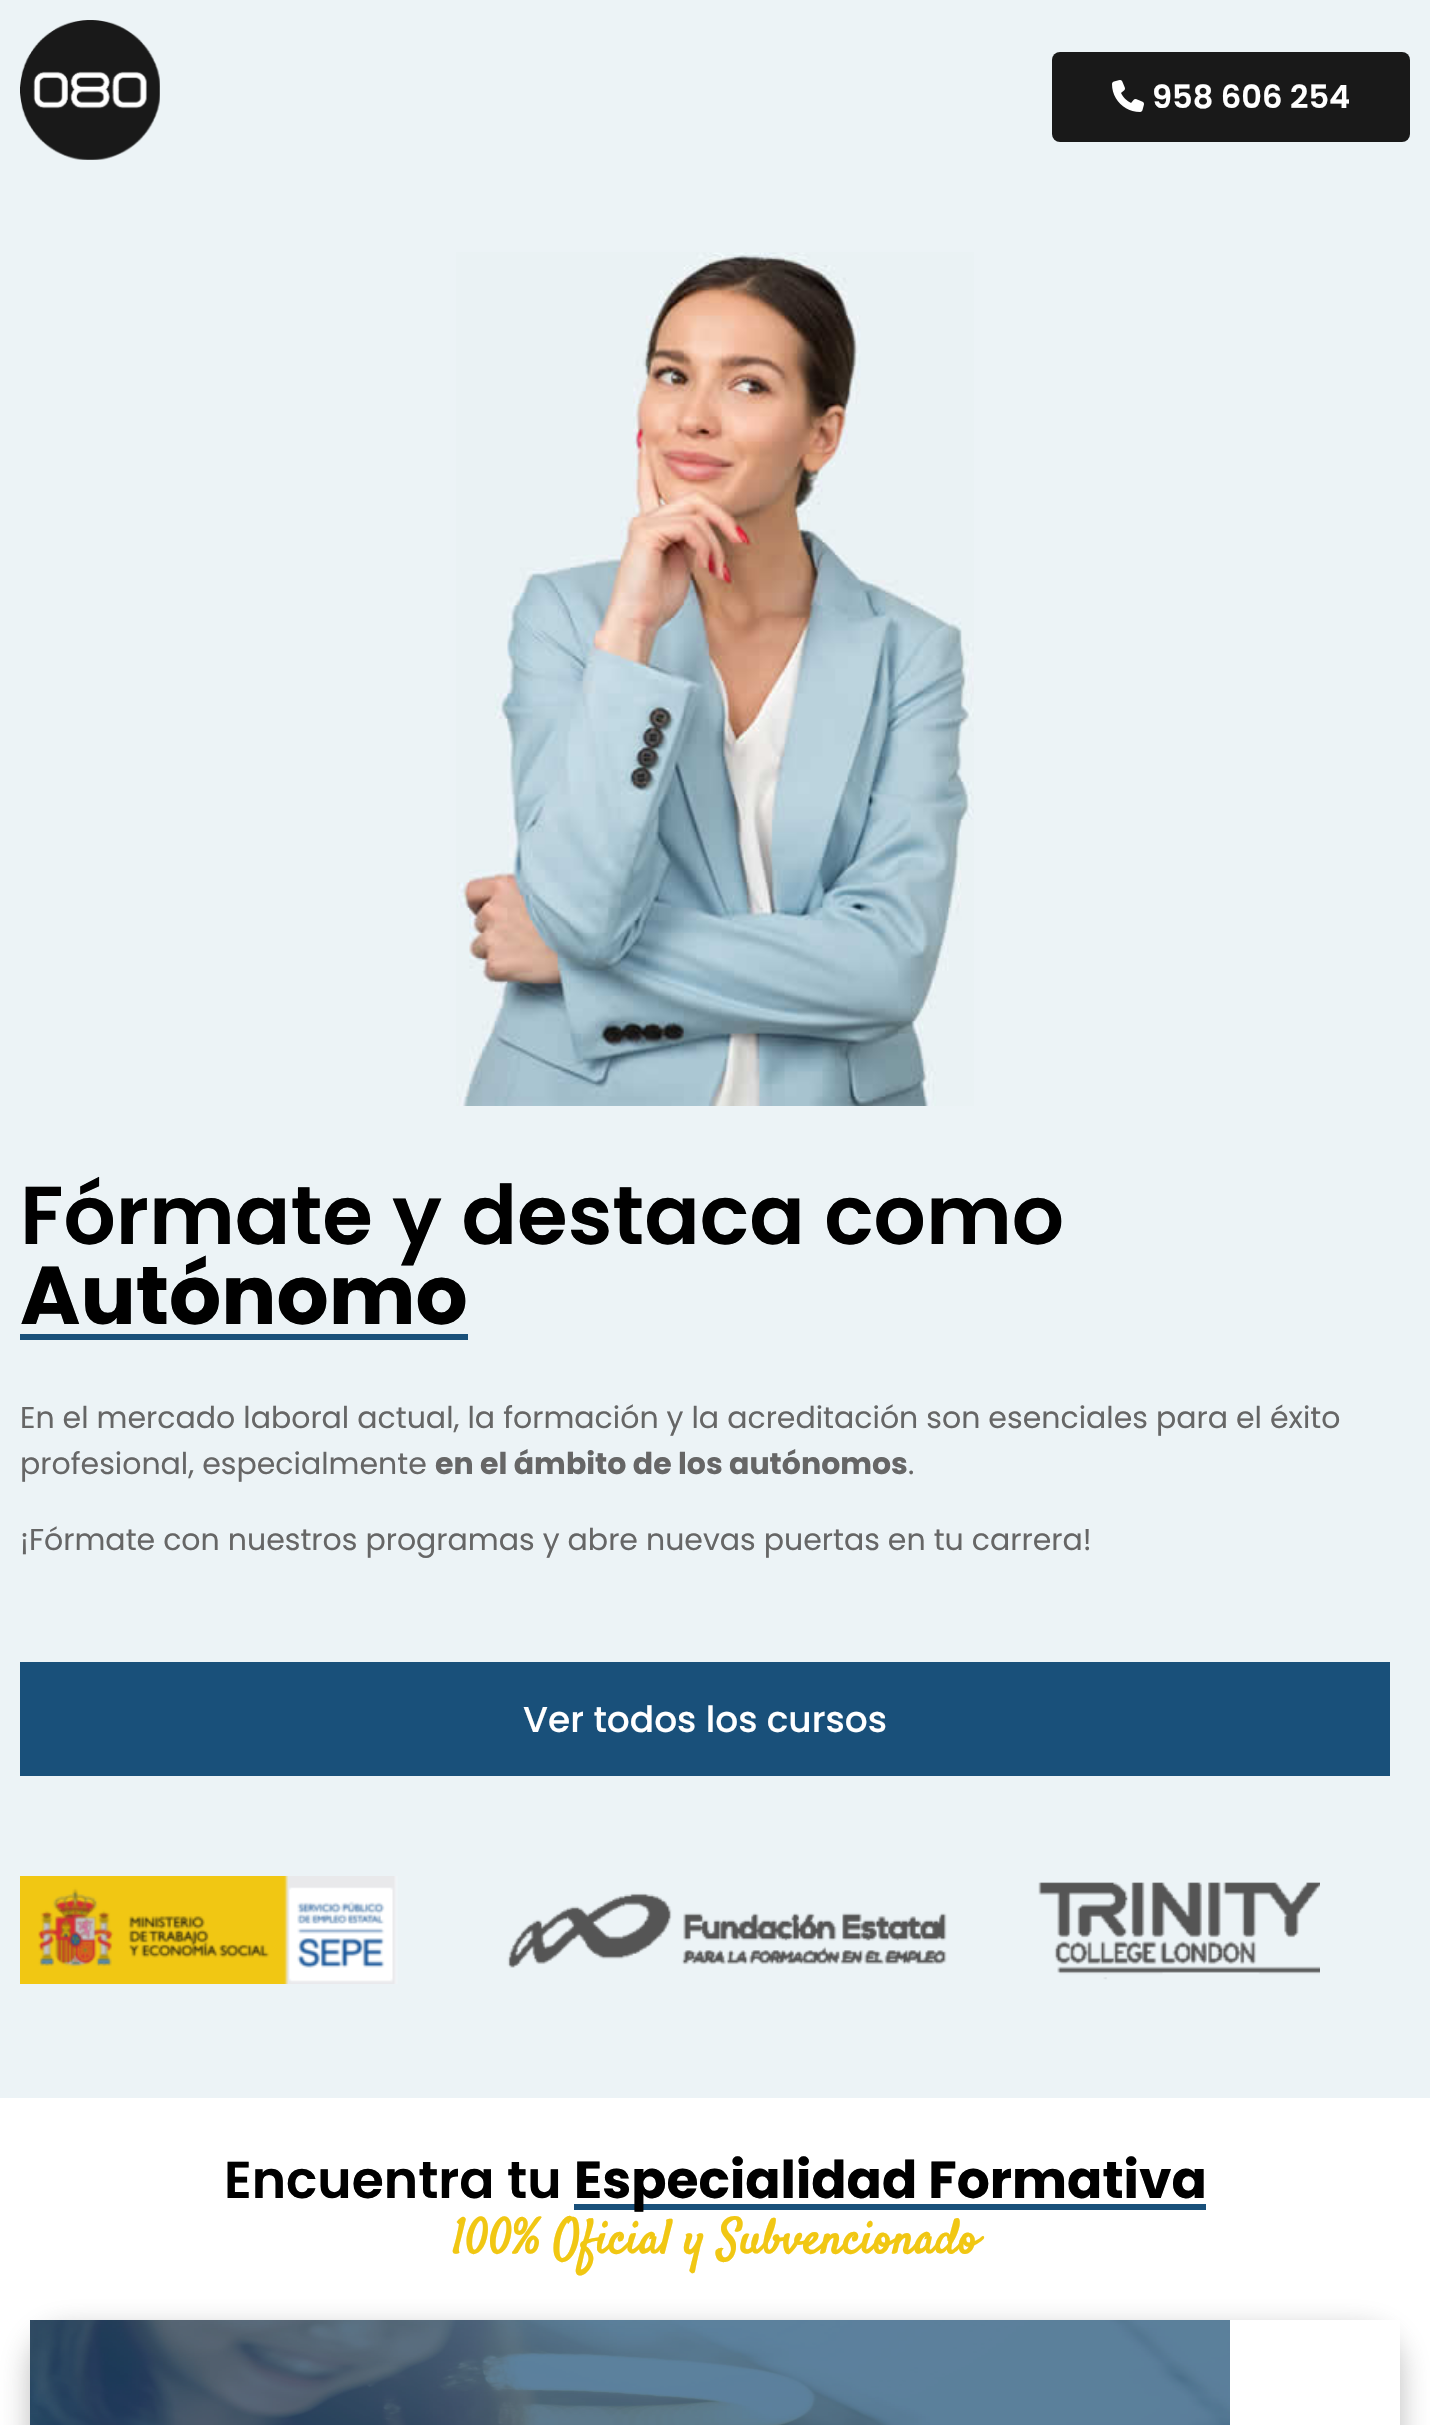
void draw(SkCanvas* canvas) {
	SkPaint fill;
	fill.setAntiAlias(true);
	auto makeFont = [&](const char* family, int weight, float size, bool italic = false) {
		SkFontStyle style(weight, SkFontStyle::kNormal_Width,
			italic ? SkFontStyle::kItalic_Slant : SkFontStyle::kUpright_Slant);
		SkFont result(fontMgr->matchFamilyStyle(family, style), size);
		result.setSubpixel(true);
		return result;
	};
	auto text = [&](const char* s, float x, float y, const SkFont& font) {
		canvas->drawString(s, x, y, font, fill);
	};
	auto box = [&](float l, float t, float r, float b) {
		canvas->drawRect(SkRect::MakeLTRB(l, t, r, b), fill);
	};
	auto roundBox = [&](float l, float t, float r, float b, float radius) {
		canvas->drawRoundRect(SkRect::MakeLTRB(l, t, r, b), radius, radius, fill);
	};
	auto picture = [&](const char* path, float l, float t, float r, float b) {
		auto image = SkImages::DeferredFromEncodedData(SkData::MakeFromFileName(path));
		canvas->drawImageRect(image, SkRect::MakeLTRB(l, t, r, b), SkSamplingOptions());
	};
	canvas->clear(0xFFFFFFFF);
	fill.setColor(0xFFECF3F6);
	box(0, 0, 1430, 2098);
	picture("image0.png", 20, 20, 160, 160);
	fill.setColor(0xFF191919);
	roundBox(1052, 52, 1410, 142, 8);
	picture("image1.png", 1112, 80, 1144, 112);
	picture("image2.png", 456, 252, 974, 1106);
	fill.setColor(0xFF19507A);
	box(20, 1334, 468, 1340);
	box(20, 1662, 1390, 1776);
	picture("image3.png", 20, 1876, 1320, 1984);
	box(574, 2204, 1206, 2210);
	canvas->save();
	canvas->clipPath(SkPathBuilder(SkPathFillType::kEvenOdd).moveTo(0, 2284).lineTo(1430, 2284).lineTo(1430, 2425).lineTo(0, 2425).close().moveTo(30, 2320).lineTo(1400, 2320).lineTo(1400, 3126).cubicTo(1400, 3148, 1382, 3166, 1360, 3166).lineTo(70, 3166).cubicTo(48, 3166, 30, 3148, 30, 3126).close().detach(), true);
	fill.setColor(0x7A707070);
	fill.setMaskFilter(SkMaskFilter::MakeBlur(kNormal_SkBlurStyle, 15));
	canvas->drawRoundRect(SkRect::MakeLTRB(30, 2330, 1400, 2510), 40, 40, fill);
	fill.setMaskFilter(nullptr);
	canvas->restore();
	picture("image4.png", 30, 2320, 1230, 2425);
	auto font1 = makeFont("Poppins", 600, 32);
	fill.setColor(0xFFFFFFFF);
	text("958 606 254", 1152, 108, font1);
	auto font2 = makeFont("Poppins", 600, 82);
	fill.setColor(0xFF000000);
	text("Fórmate y destaca como", 20, 1244, font2);
	auto font3 = makeFont("Poppins", 700, 82);
	text("Autónomo", 20, 1324, font3);
	auto font4 = makeFont("Poppins", 400, 30);
	fill.setColor(0xFF666666);
	text("En el mercado laboral actual, la formación y la acreditación son esenciales para el éxito", 20, 1428, font4);
	text("profesional, especialmente", 20, 1474, font4);
	auto font5 = makeFont("Poppins", 700, 30);
	text("en el ámbito de los autónomos", 435, 1474, font5);
	text(".", 908, 1474, font4);
	text("¡Fórmate con nuestros programas y abre nuevas puertas en tu carrera!", 20, 1550, font4);
	auto font6 = makeFont("Poppins", 500, 36);
	fill.setColor(0xFFFFFFFF);
	text("Ver todos los cursos", 523, 1732, font6);
	auto font7 = makeFont("Poppins", 600, 52);
	fill.setColor(0xFF000000);
	text("Encuentra tu", 224, 2198, font7);
	auto font8 = makeFont("Poppins", 700, 52);
	text("Especialidad Formativa", 574, 2198, font8);
	auto font9 = makeFont("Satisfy", 700, 48);
	fill.setColor(0xFFF1C713);
	text("100% Oficial y Subvencionado", 452, 2253, font9);
}
